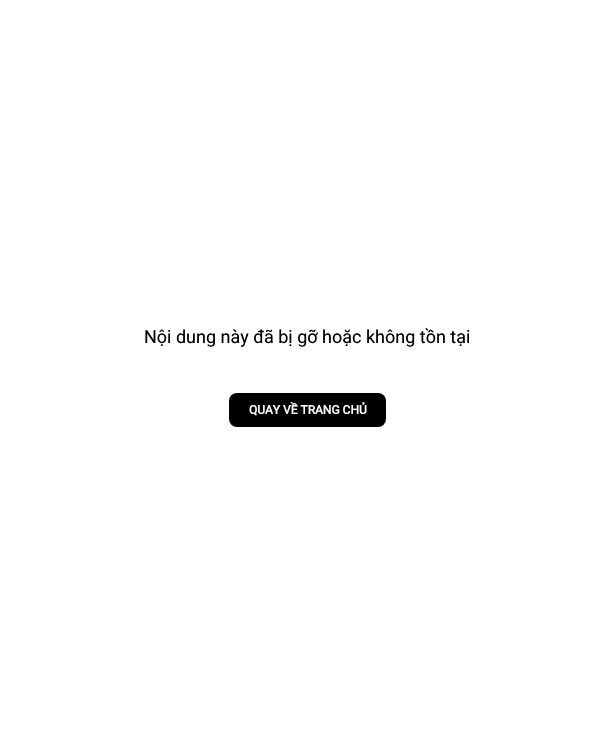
void draw(SkCanvas* canvas) {
	SkPaint fill;
	fill.setAntiAlias(true);
	auto makeFont = [&](const char* family, int weight, float size, bool italic = false) {
		SkFontStyle style(weight, SkFontStyle::kNormal_Width,
			italic ? SkFontStyle::kItalic_Slant : SkFontStyle::kUpright_Slant);
		SkFont result(fontMgr->matchFamilyStyle(family, style), size);
		result.setSubpixel(true);
		return result;
	};
	auto text = [&](const char* s, float x, float y, const SkFont& font) {
		canvas->drawString(s, x, y, font, fill);
	};
	auto roundBox = [&](float l, float t, float r, float b, float radius) {
		canvas->drawRoundRect(SkRect::MakeLTRB(l, t, r, b), radius, radius, fill);
	};
	canvas->clear(0xFFFFFFFF);
	fill.setColor(0xFF000000);
	roundBox(229, 393, 386, 427, 8);
	auto font1 = makeFont("Roboto", 400, 18);
	text("Nội dung này đã bị gỡ hoặc không tồn tại", 144, 343, font1);
	auto font2 = makeFont("Roboto", 700, 12);
	fill.setColor(0xFFFFFFFF);
	text("QUAY VỀ TRANG CHỦ", 249, 414, font2);
}
